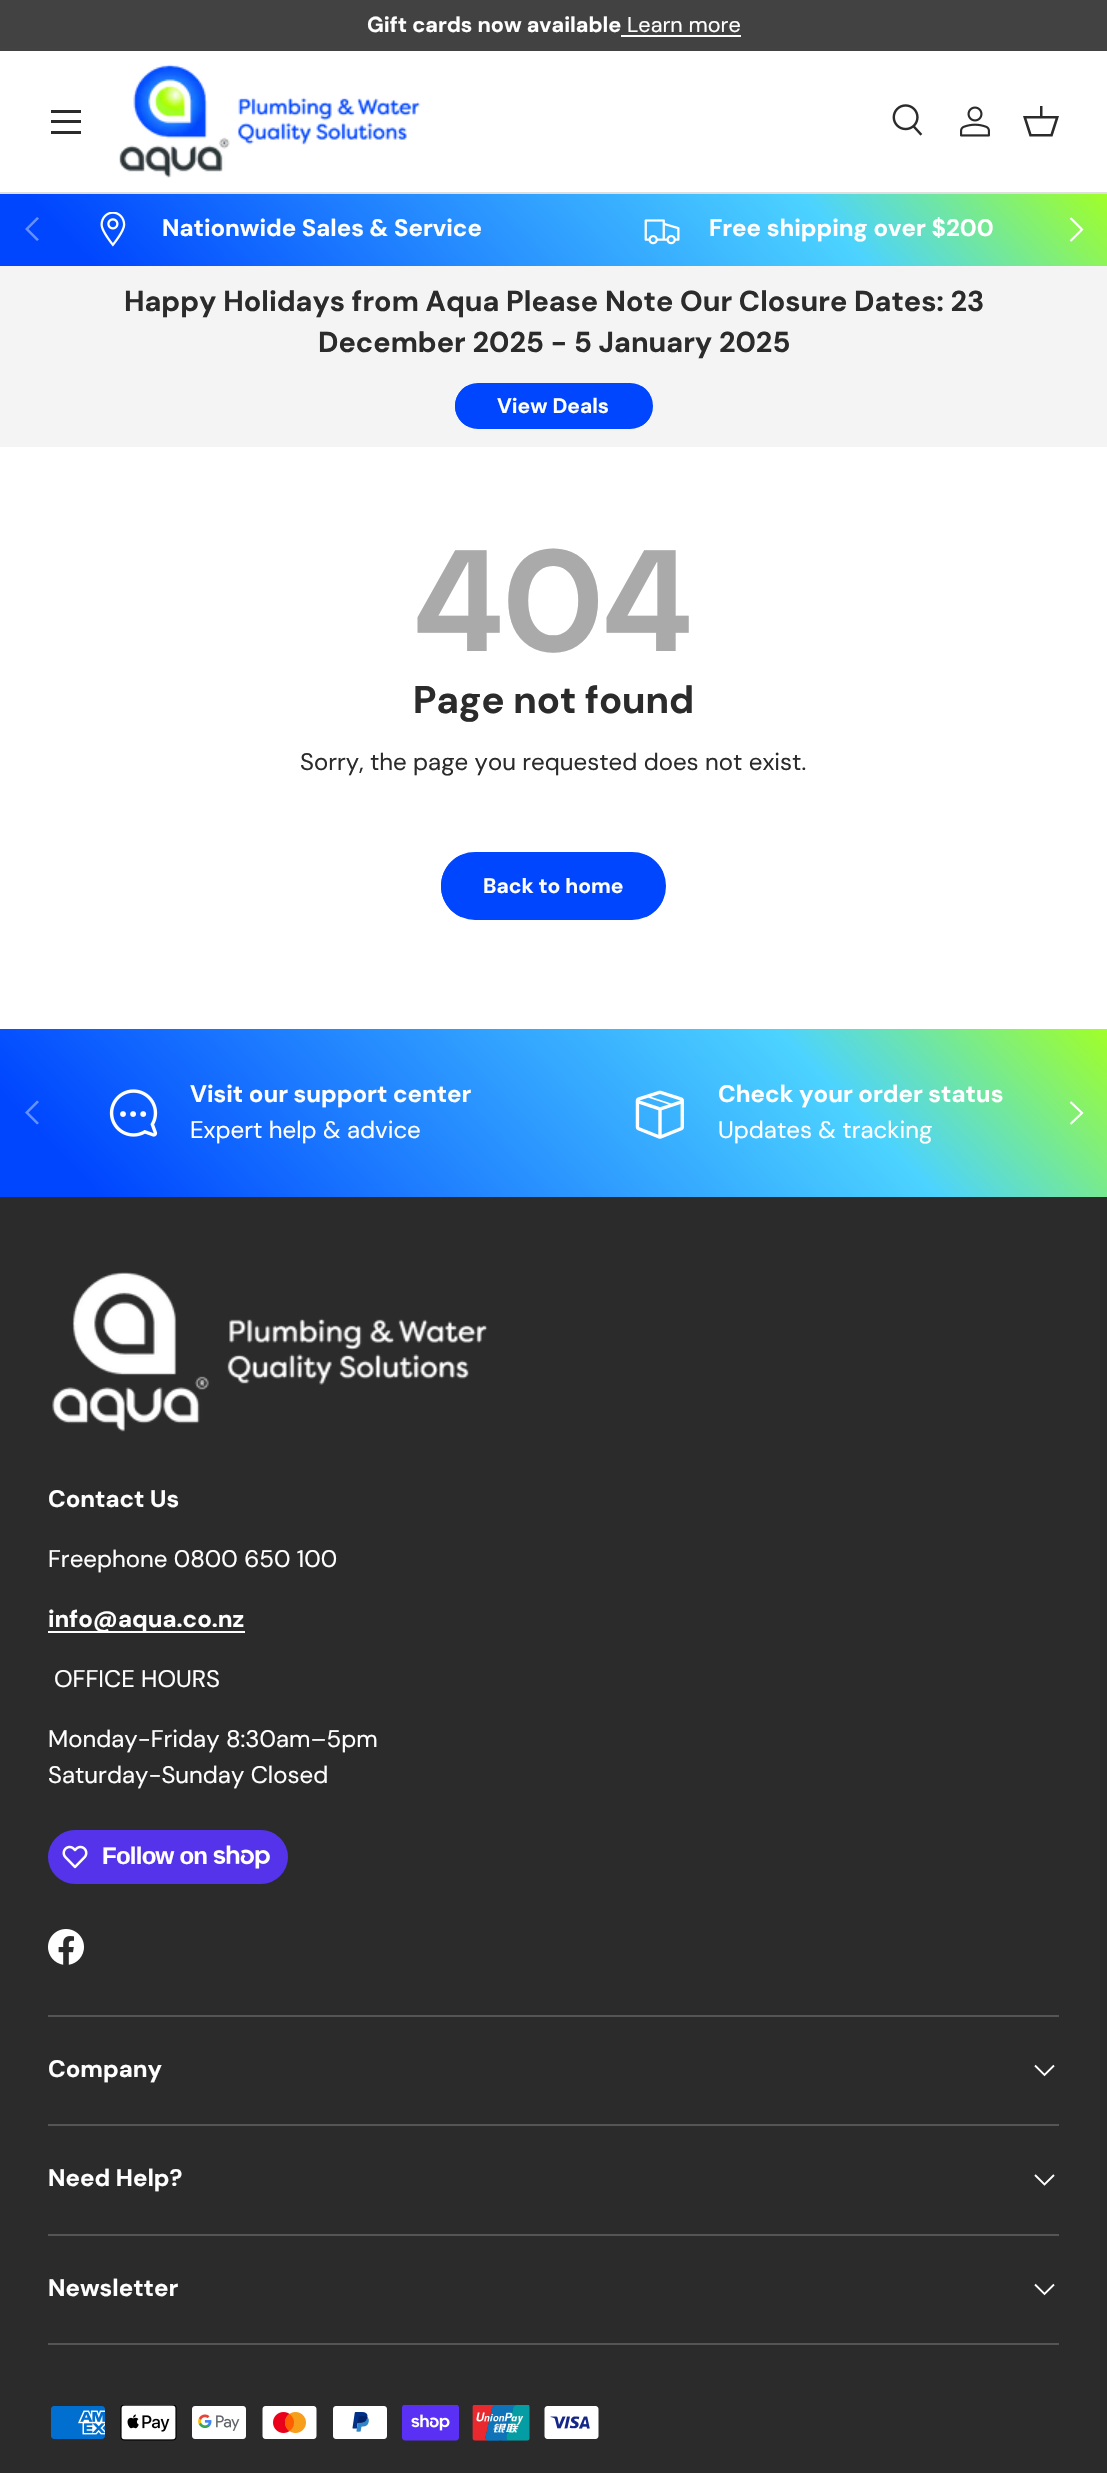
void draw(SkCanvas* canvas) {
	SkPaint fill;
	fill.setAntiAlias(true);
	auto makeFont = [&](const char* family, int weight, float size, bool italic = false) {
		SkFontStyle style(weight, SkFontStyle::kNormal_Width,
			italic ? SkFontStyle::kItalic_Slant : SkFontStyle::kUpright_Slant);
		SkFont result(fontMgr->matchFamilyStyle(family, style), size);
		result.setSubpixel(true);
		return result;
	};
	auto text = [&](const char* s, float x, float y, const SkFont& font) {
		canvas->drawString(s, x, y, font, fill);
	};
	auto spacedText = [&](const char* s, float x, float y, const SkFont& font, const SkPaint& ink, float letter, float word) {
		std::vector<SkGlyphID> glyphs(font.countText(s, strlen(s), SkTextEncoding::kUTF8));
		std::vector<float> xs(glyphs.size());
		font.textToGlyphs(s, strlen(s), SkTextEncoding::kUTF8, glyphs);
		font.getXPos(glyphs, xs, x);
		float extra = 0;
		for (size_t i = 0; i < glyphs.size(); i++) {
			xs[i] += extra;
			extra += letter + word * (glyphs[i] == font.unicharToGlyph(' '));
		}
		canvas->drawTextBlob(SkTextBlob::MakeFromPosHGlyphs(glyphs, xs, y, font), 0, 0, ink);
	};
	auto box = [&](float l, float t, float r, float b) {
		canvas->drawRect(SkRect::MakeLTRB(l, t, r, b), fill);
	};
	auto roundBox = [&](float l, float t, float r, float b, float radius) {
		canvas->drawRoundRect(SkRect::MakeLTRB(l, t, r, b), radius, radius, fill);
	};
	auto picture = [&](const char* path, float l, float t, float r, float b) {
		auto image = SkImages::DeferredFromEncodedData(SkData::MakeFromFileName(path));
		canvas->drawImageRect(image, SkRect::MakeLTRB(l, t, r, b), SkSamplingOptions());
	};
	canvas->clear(0xFFFFFFFF);
	fill.setColor(0xFF424243);
	box(0, 0, 1107, 51);
	fill.setColor(0xFFFFFFFF);
	box(621, 35, 741, 37);
	fill.setColor(0xFFDFDFDF);
	box(0, 192, 1107, 194);
	fill.setColor(0xFF2A2B2A);
	box(51, 110, 81, 113);
	box(51, 131, 81, 134);
	box(51, 120, 81, 123);
	picture("image0.png", 119, 64, 421, 178);
	picture("image1.png", 892, 104, 923, 136);
	picture("image2.png", 960, 106, 990, 137);
	canvas->drawPath(SkPathBuilder().moveTo(1040, 116).lineTo(1040, 106).lineTo(1042.5f, 106).lineTo(1042.5f, 116).lineTo(1059, 116).lineTo(1052.5f, 136.5f).lineTo(1029.5f, 136.5f).lineTo(1023, 116).close().moveTo(1026.5f, 118.5f).lineTo(1031.5f, 134).lineTo(1050.5f, 134).lineTo(1055.5f, 118.5f).close().detach(), fill);
	{
		const SkColor colors[] = {0xFF0046FF, 0xFF4CD3FF, 0xFFA0FF28};
		const float stops[] = {0.08f, 0.74f, 1};
		const SkPoint ends[] = {{249, 523}, {858, -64}};
		fill.setShader(SkGradientShader::MakeLinear(ends, colors, stops, 3, SkTileMode::kClamp));
		fill.setAlpha(255);
	}
	box(0, 194, 1107, 266);
	fill.setShader(nullptr);
	fill.setColor(0xFF6690FF);
	canvas->drawPath(SkPathBuilder().moveTo(25, 229).lineTo(37, 217).lineTo(39, 218.5f).lineTo(28.5f, 229).lineTo(39, 239.5f).lineTo(37, 241).close().detach(), fill);
	fill.setStyle(SkPaint::kStroke_Style);
	fill.setStrokeWidth(2.2f);
	fill.setColor(0xFFFFFFFF);
	canvas->drawPath(SkPathBuilder().moveTo(1070.5f, 218).lineTo(1082, 229.5f).lineTo(1070.5f, 241).detach(), fill);
	picture("image3.png", 100, 212, 126, 247);
	picture("image4.png", 644, 219, 680, 245);
	fill.setStyle(SkPaint::kFill_Style);
	fill.setColor(0xFFF4F4F4);
	box(0, 266, 1107, 447);
	canvas->save();
	canvas->clipPath(SkPathBuilder().moveTo(478, 383).lineTo(630, 383).cubicTo(642.5f, 383, 653, 393.5f, 653, 406).cubicTo(653, 418.5f, 642.5f, 429, 630, 429).lineTo(478, 429).cubicTo(465.5f, 429, 455, 418.5f, 455, 406).cubicTo(455, 393.5f, 465.5f, 383, 478, 383).close().detach(), true);
	{
		const SkColor colors[] = {0xFF356DFF, 0xFF0046FF, 0xFF0046FF};
		const float stops[] = {0.6f, 0.6f, 1};
		const SkPoint ends[] = {{86, 337}, {637, 475}};
		fill.setShader(SkGradientShader::MakeLinear(ends, colors, stops, 3, SkTileMode::kClamp));
		fill.setAlpha(255);
	}
	box(455, 386, 650, 426);
	canvas->restore();
	fill.setStyle(SkPaint::kStroke_Style);
	fill.setStrokeWidth(3);
	fill.setShader(nullptr);
	fill.setColor(0xFF0046FF);
	canvas->drawRoundRect(SkRect::MakeLTRB(456.5f, 384.5f, 651.5f, 427.5f), 21.5f, 21.5f, fill);
	canvas->save();
	canvas->clipPath(SkPathBuilder().moveTo(475, 852).lineTo(632, 852).cubicTo(651, 852, 666, 867, 666, 886).cubicTo(666, 905, 651, 920, 632, 920).lineTo(475, 920).cubicTo(456, 920, 441, 905, 441, 886).cubicTo(441, 867, 456, 852, 475, 852).close().detach(), true);
	fill.setStyle(SkPaint::kFill_Style);
	{
		const SkColor colors[] = {0xFF356DFF, 0xFF0046FF, 0xFF0046FF};
		const float stops[] = {0.6f, 0.6f, 1};
		const SkPoint ends[] = {{18, 807}, {651, 965}};
		fill.setShader(SkGradientShader::MakeLinear(ends, colors, stops, 3, SkTileMode::kClamp));
		fill.setAlpha(255);
	}
	box(441, 855, 663, 917);
	canvas->restore();
	fill.setStyle(SkPaint::kStroke_Style);
	fill.setShader(nullptr);
	fill.setColor(0xFF0046FF);
	canvas->drawRoundRect(SkRect::MakeLTRB(442.5f, 853.5f, 664.5f, 918.5f), 32.5f, 32.5f, fill);
	fill.setStyle(SkPaint::kFill_Style);
	{
		const SkColor colors[] = {0xFF0046FF, 0xFF4CD3FF, 0xFFA0FF28};
		const float stops[] = {0.08f, 0.74f, 1};
		const SkPoint ends[] = {{225, 1430}, {882, 796}};
		fill.setShader(SkGradientShader::MakeLinear(ends, colors, stops, 3, SkTileMode::kClamp));
		fill.setAlpha(255);
	}
	box(0, 1029, 1107, 1197);
	picture("image5.png", 109, 1089, 158, 1137);
	picture("image6.png", 635, 1090, 684, 1139);
	fill.setShader(nullptr);
	fill.setColor(0x66FFFFFF);
	canvas->drawPath(SkPathBuilder().moveTo(25, 1112.5f).lineTo(37, 1100.5f).lineTo(39, 1102).lineTo(28.5f, 1112.5f).lineTo(39, 1123).lineTo(37, 1124.5f).close().detach(), fill);
	fill.setStyle(SkPaint::kStroke_Style);
	fill.setStrokeWidth(2.2f);
	fill.setColor(0xFFFFFFFF);
	canvas->drawPath(SkPathBuilder().moveTo(1070.5f, 1102).lineTo(1082, 1113).lineTo(1070.5f, 1124).detach(), fill);
	fill.setStyle(SkPaint::kFill_Style);
	fill.setColor(0xFF2A2B2A);
	box(0, 1197, 1107, 2473);
	picture("image7.png", 52, 1272, 488, 1432);
	fill.setColor(0xFFFFFFFF);
	box(48, 1631, 245, 1633);
	fill.setColor(0xFF5433EB);
	roundBox(48, 1830, 288, 1884, 27);
	picture("image8.png", 62, 1845, 88, 1869);
	picture("image9.png", 213, 1845, 270, 1869);
	picture("image10.png", 48, 1929, 84, 1965);
	fill.setColor(0xFF555555);
	box(48, 2015, 1059, 2017);
	box(48, 2124, 1059, 2126);
	fill.setStyle(SkPaint::kStroke_Style);
	fill.setStrokeWidth(1.9f);
	fill.setColor(0xFFFFFFFF);
	canvas->drawPath(SkPathBuilder().moveTo(1054, 2065.5f).lineTo(1044.5f, 2075).lineTo(1035, 2065.5f).detach(), fill);
	fill.setStyle(SkPaint::kFill_Style);
	fill.setColor(0xFF555555);
	box(48, 2234, 1059, 2236);
	fill.setStyle(SkPaint::kStroke_Style);
	fill.setColor(0xFFFFFFFF);
	canvas->drawPath(SkPathBuilder().moveTo(1054, 2175).lineTo(1044.5f, 2184.5f).lineTo(1035, 2175).detach(), fill);
	fill.setStyle(SkPaint::kFill_Style);
	fill.setColor(0xFF555555);
	box(48, 2343, 1059, 2345);
	fill.setStyle(SkPaint::kStroke_Style);
	fill.setColor(0xFFFFFFFF);
	canvas->drawPath(SkPathBuilder().moveTo(1054, 2284.5f).lineTo(1044.5f, 2294).lineTo(1035, 2284.5f).detach(), fill);
	picture("image11.png", 51, 2406, 105, 2439);
	picture("image12.png", 120, 2405, 177, 2441);
	picture("image13.png", 192, 2406, 246, 2439);
	picture("image14.png", 262, 2406, 317, 2439);
	picture("image15.png", 333, 2406, 387, 2439);
	picture("image16.png", 402, 2405, 459, 2441);
	picture("image17.png", 472, 2405, 530, 2441);
	picture("image18.png", 544, 2406, 599, 2439);
	auto font1 = makeFont("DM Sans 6", 700, 21.6f);
	fill.setStyle(SkPaint::kFill_Style);
	text("Gift cards now available", 367, 32, font1);
	auto font2 = makeFont("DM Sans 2", 400, 21.6f);
	text("Learn more", 627, 32, font2);
	auto font3 = makeFont("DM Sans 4", 700, 24);
	text("Nationwide Sales & Service", 162, 236, font3);
	text("Free shipping over $200", 709, 236, font3);
	auto font4 = makeFont("DM Sans", 700, 28.8f);
	fill.setColor(0xFF2A2B2A);
	text("Happy Holidays from Aqua Please Note Our Closure Dates: 23", 124, 311, font4);
	text("December 2025 - 5 January 2025", 318, 352, font4);
	auto font5 = makeFont("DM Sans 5", 700, 21);
	fill.setColor(0xFFFFFFFF);
	text("View Deals", 497, 413, font5);
	auto font6 = makeFont("DM Sans 2", 700, 144);
	fill.setColor(0xFFAAAAAA);
	text("404", 414, 651, font6);
	auto font7 = makeFont("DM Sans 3", 700, 38.5f);
	fill.setColor(0xFF2A2B2A);
	text("Page not found", 413, 713, font7);
	auto font8 = makeFont("DM Sans", 400, 24);
	text("Sorry, the page you requested does not exist.", 300, 770, font8);
	fill.setColor(0xFFFFFFFF);
	text("Back to home", 483, 893, font5);
	text("Visit our support center", 190, 1102, font3);
	text("Expert help & advice", 190, 1138, font8);
	text("Check your order status", 718, 1102, font3);
	text("Updates & tracking", 718, 1138, font8);
	text("Contact Us", 48, 1507, font3);
	text("Freephone 0800 650 100", 48, 1567, font8);
	text("info@aqua.co.nz", 48, 1627, font3);
	text("OFFICE HOURS", 54, 1687, font8);
	text("Monday-Friday 8:30am–5pm", 48, 1747, font8);
	text("Saturday-Sunday Closed", 48, 1783, font8);
	auto font9 = makeFont("Liberation Sans", 700, 24);
	spacedText("Follow on", 102, 1864, font9, fill, -0.75f, 0);
	text("Company", 48, 2077, font3);
	text("Need Help?", 48, 2186, font3);
	text("Newsletter", 48, 2296, font3);
}
